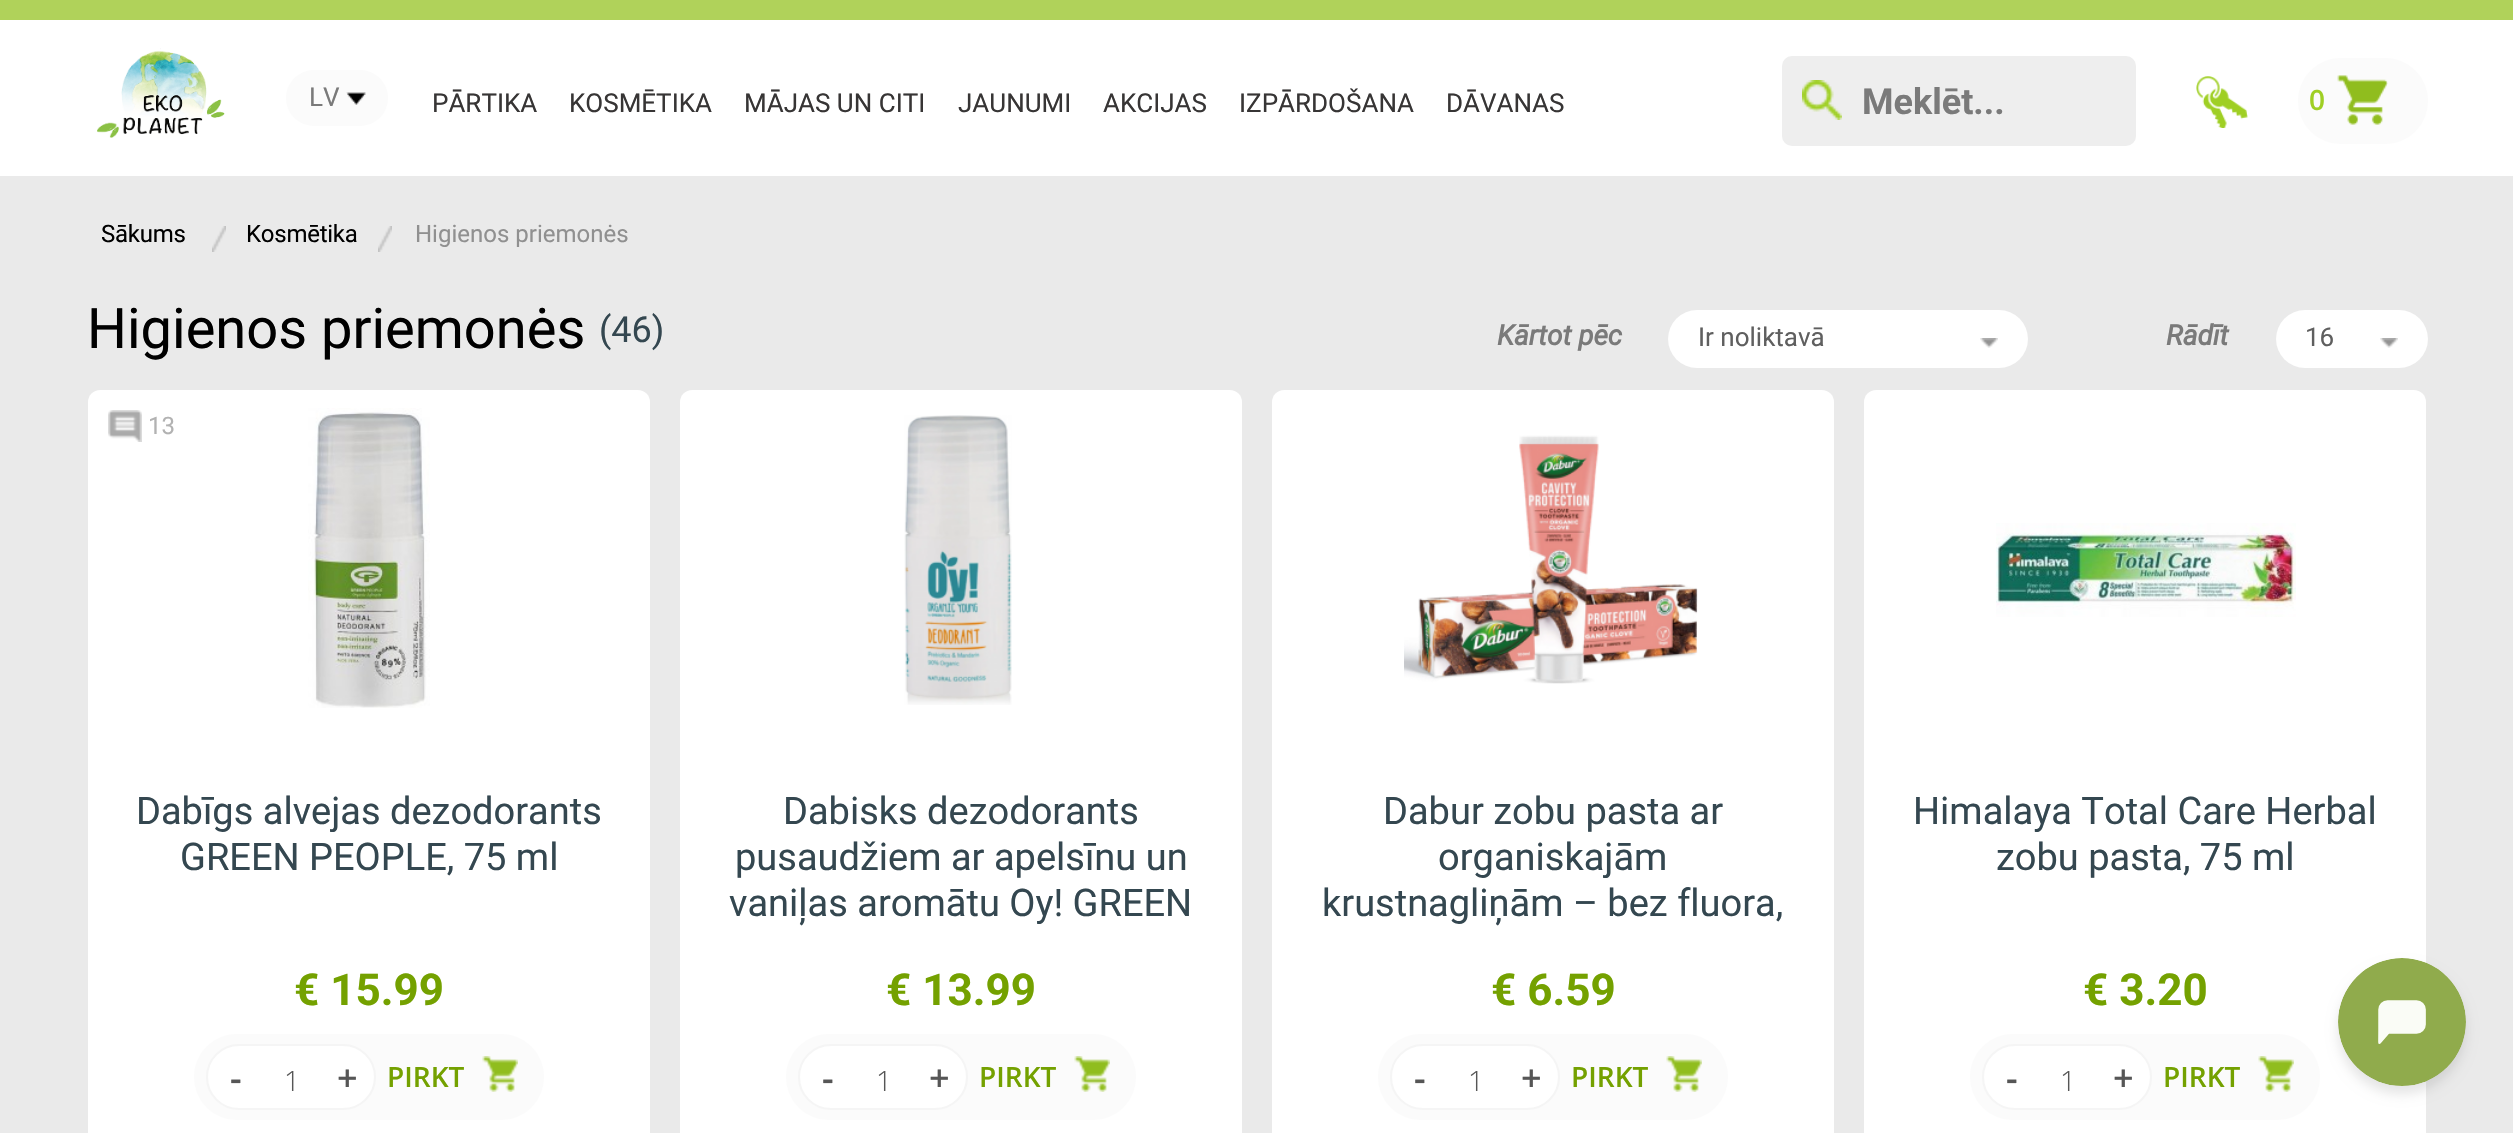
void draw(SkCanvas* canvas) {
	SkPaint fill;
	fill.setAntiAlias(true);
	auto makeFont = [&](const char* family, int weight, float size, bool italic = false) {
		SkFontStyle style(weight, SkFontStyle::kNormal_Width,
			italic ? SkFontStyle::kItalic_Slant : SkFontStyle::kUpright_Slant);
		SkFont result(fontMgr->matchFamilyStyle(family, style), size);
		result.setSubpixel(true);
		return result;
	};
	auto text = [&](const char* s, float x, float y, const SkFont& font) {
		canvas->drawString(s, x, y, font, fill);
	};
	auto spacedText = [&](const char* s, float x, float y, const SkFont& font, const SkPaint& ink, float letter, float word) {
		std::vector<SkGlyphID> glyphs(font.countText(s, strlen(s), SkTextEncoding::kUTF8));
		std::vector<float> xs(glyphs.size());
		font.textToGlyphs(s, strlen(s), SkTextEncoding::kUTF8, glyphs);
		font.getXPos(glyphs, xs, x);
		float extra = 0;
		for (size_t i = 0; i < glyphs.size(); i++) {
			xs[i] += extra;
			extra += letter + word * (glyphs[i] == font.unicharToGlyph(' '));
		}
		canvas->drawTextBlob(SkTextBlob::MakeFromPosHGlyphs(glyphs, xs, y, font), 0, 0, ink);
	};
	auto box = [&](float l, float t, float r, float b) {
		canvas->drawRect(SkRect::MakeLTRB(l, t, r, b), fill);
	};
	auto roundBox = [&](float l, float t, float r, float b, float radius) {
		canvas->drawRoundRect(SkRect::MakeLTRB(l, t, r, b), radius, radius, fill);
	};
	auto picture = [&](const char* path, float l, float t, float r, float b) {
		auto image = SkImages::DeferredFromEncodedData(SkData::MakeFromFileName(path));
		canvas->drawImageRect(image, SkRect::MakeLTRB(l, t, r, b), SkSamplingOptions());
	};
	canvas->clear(0xFFEAEAEA);
	fill.setColor(0xFFB0D25A);
	box(0, 0, 2513, 20);
	fill.setColor(0xFFFFFFFF);
	box(0, 20, 2513, 176);
	picture("image0.png", 97, 48, 225, 138);
	fill.setColor(0xFFFBFBFB);
	roundBox(286, 70, 388, 126, 28);
	picture("image1.png", 346, 92, 366, 105);
	fill.setColor(0xFFEEEEEE);
	roundBox(1782, 56, 2136, 146, 10);
	picture("image2.png", 1802, 80, 1842, 120);
	picture("image3.png", 2196, 76, 2248, 128);
	fill.setColor(0xFFFBFBFB);
	roundBox(2298, 58, 2428, 144, 43);
	picture("image4.png", 2337, 75, 2388, 125);
	picture("image5.png", 212, 226, 226, 252);
	picture("image5.png", 378, 226, 392, 252);
	fill.setColor(0xFFFFFFFF);
	roundBox(1668, 310, 2028, 368, 29);
	picture("image6.png", 1980, 338, 1998, 348);
	roundBox(2276, 310, 2428, 368, 29);
	picture("image6.png", 2380, 338, 2398, 348);
	roundBox(88, 390, 650, 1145, 12);
	picture("image7.png", 108, 410, 142, 442);
	picture("image8.png", 308, 408, 430, 708);
	fill.setColor(0xFFFBFBFB);
	roundBox(194, 1034, 544, 1120, 43);
	picture("image9.png", 482, 1056, 518, 1092);
	fill.setColor(0xFFFFFFFF);
	canvas->drawRoundRect(SkRect::MakeLTRB(207, 1045, 375, 1109), 32, 32, fill);
	fill.setStyle(SkPaint::kStroke_Style);
	fill.setStrokeWidth(2);
	fill.setColor(0xFFF5F5F5);
	canvas->drawRoundRect(SkRect::MakeLTRB(207, 1045, 375, 1109), 32, 32, fill);
	fill.setStyle(SkPaint::kFill_Style);
	fill.setColor(0xFFFFFFFF);
	roundBox(680, 390, 1242, 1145, 12);
	picture("image10.png", 904, 415, 1012, 705);
	fill.setColor(0xFFFBFBFB);
	roundBox(786, 1034, 1136, 1120, 43);
	picture("image9.png", 1074, 1056, 1110, 1092);
	fill.setColor(0xFFFFFFFF);
	canvas->drawRoundRect(SkRect::MakeLTRB(799, 1045, 967, 1109), 32, 32, fill);
	fill.setStyle(SkPaint::kStroke_Style);
	fill.setColor(0xFFF5F5F5);
	canvas->drawRoundRect(SkRect::MakeLTRB(799, 1045, 967, 1109), 32, 32, fill);
	fill.setStyle(SkPaint::kFill_Style);
	fill.setColor(0xFFFFFFFF);
	roundBox(1272, 390, 1834, 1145, 12);
	picture("image11.png", 1404, 435, 1698, 684);
	fill.setColor(0xFFFBFBFB);
	roundBox(1378, 1034, 1728, 1120, 43);
	picture("image9.png", 1666, 1056, 1702, 1092);
	fill.setColor(0xFFFFFFFF);
	canvas->drawRoundRect(SkRect::MakeLTRB(1391, 1045, 1559, 1109), 32, 32, fill);
	fill.setStyle(SkPaint::kStroke_Style);
	fill.setColor(0xFFF5F5F5);
	canvas->drawRoundRect(SkRect::MakeLTRB(1391, 1045, 1559, 1109), 32, 32, fill);
	fill.setStyle(SkPaint::kFill_Style);
	fill.setColor(0xFFFFFFFF);
	roundBox(1864, 390, 2426, 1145, 12);
	picture("image12.png", 1996, 523, 2296, 617);
	fill.setColor(0xFFFBFBFB);
	roundBox(1970, 1034, 2320, 1120, 43);
	picture("image9.png", 2258, 1056, 2294, 1092);
	fill.setColor(0xFFFFFFFF);
	canvas->drawRoundRect(SkRect::MakeLTRB(1983, 1045, 2151, 1109), 32, 32, fill);
	fill.setStyle(SkPaint::kStroke_Style);
	fill.setColor(0xFFF5F5F5);
	canvas->drawRoundRect(SkRect::MakeLTRB(1983, 1045, 2151, 1109), 32, 32, fill);
	fill.setStyle(SkPaint::kFill_Style);
	fill.setColor(0x1A000000);
	fill.setMaskFilter(SkMaskFilter::MakeBlur(kNormal_SkBlurStyle, 6));
	canvas->drawRoundRect(SkRect::MakeLTRB(2338, 966, 2466, 1094), 64, 64, fill);
	fill.setMaskFilter(nullptr);
	picture("image13.png", 2338, 958, 2466, 1086);
	auto font1 = makeFont("Roboto", 400, 26);
	fill.setColor(0xFF7A7A7A);
	text("LV", 309, 106, font1);
	fill.setColor(0xFF373535);
	text("PĀRTIKA", 432, 112, font1);
	text("KOSMĒTIKA", 569, 112, font1);
	text("MĀJAS UN CITI", 744, 112, font1);
	text("JAUNUMI", 958, 112, font1);
	text("AKCIJAS", 1103, 112, font1);
	text("IZPĀRDOŠANA", 1239, 112, font1);
	text("DĀVANAS", 1446, 112, font1);
	auto font2 = makeFont("Roboto", 700, 36);
	fill.setColor(0xFF7A7A7A);
	text("Meklēt...", 1862, 114, font2);
	auto font3 = makeFont("Open Sans", 600, 28);
	fill.setColor(0xFF9FCF24);
	text("0", 2309, 110, font3);
	auto font4 = makeFont("Roboto", 400, 24);
	fill.setColor(0xFF000000);
	spacedText("Sākums", 101, 242, font4, fill, -0.25f, 0);
	spacedText("Kosmētika", 246, 242, font4, fill, -0.25f, 0);
	fill.setColor(0xFF909090);
	text("Higienos priemonės", 415, 242, font4);
	auto font5 = makeFont("Roboto", 400, 56);
	fill.setColor(0xFF000000);
	text("Higienos priemonės", 87, 348, font5);
	auto font6 = makeFont("Roboto", 400, 36);
	fill.setColor(0xFF344750);
	text("(46)", 599, 342, font6);
	auto font7 = makeFont("Roboto", 700, 28, true);
	fill.setColor(0xFF7A7A7A);
	text("Kārtot pēc", 1497, 345, font7);
	fill.setColor(0xFF5F5F5F);
	text("Ir noliktavā", 1698, 346, font1);
	fill.setColor(0xFF7A7A7A);
	text("Rādīt", 2166, 345, font7);
	fill.setColor(0xFF5F5F5F);
	text("16", 2305, 346, font1);
	fill.setColor(0xFFB2B2B2);
	text("13", 148, 434, font4);
	auto font8 = makeFont("Roboto", 400, 38);
	fill.setColor(0xFF344750);
	text("Dabīgs alvejas dezodorants", 136, 824, font8);
	text("GREEN PEOPLE, 75 ml", 180, 870, font8);
	auto font9 = makeFont("Roboto", 700, 44);
	fill.setColor(0xFF74A100);
	text("€ 15.99", 294, 1005, font9);
	auto font10 = makeFont("Open Sans", 600, 36);
	fill.setColor(0xFF565656);
	text("-", 230, 1091, font10);
	auto font11 = makeFont("Open Sans", 300, 28);
	text("1", 284, 1091, font11);
	text("+", 337, 1091, font10);
	fill.setColor(0xFF74A100);
	text("PIRKT", 387, 1087, font3);
	fill.setColor(0xFF344750);
	text("Dabisks dezodorants", 783, 824, font8);
	text("pusaudžiem ar apelsīnu un", 735, 870, font8);
	text("vaniļas aromātu Oy! GREEN", 729, 916, font8);
	fill.setColor(0xFF74A100);
	text("€ 13.99", 886, 1005, font9);
	fill.setColor(0xFF565656);
	text("-", 822, 1091, font10);
	text("1", 876, 1091, font11);
	text("+", 929, 1091, font10);
	fill.setColor(0xFF74A100);
	text("PIRKT", 979, 1087, font3);
	fill.setColor(0xFF344750);
	text("Dabur zobu pasta ar", 1383, 824, font8);
	text("organiskajām", 1438, 870, font8);
	text("krustnagliņām – bez fluora,", 1322, 916, font8);
	fill.setColor(0xFF74A100);
	text("€ 6.59", 1491, 1005, font9);
	fill.setColor(0xFF565656);
	text("-", 1414, 1091, font10);
	text("1", 1468, 1091, font11);
	text("+", 1521, 1091, font10);
	fill.setColor(0xFF74A100);
	text("PIRKT", 1571, 1087, font3);
	fill.setColor(0xFF344750);
	text("Himalaya Total Care Herbal", 1913, 824, font8);
	text("zobu pasta, 75 ml", 1996, 870, font8);
	fill.setColor(0xFF74A100);
	text("€ 3.20", 2083, 1005, font9);
	fill.setColor(0xFF565656);
	text("-", 2006, 1091, font10);
	text("1", 2060, 1091, font11);
	text("+", 2113, 1091, font10);
	fill.setColor(0xFF74A100);
	text("PIRKT", 2163, 1087, font3);
}
